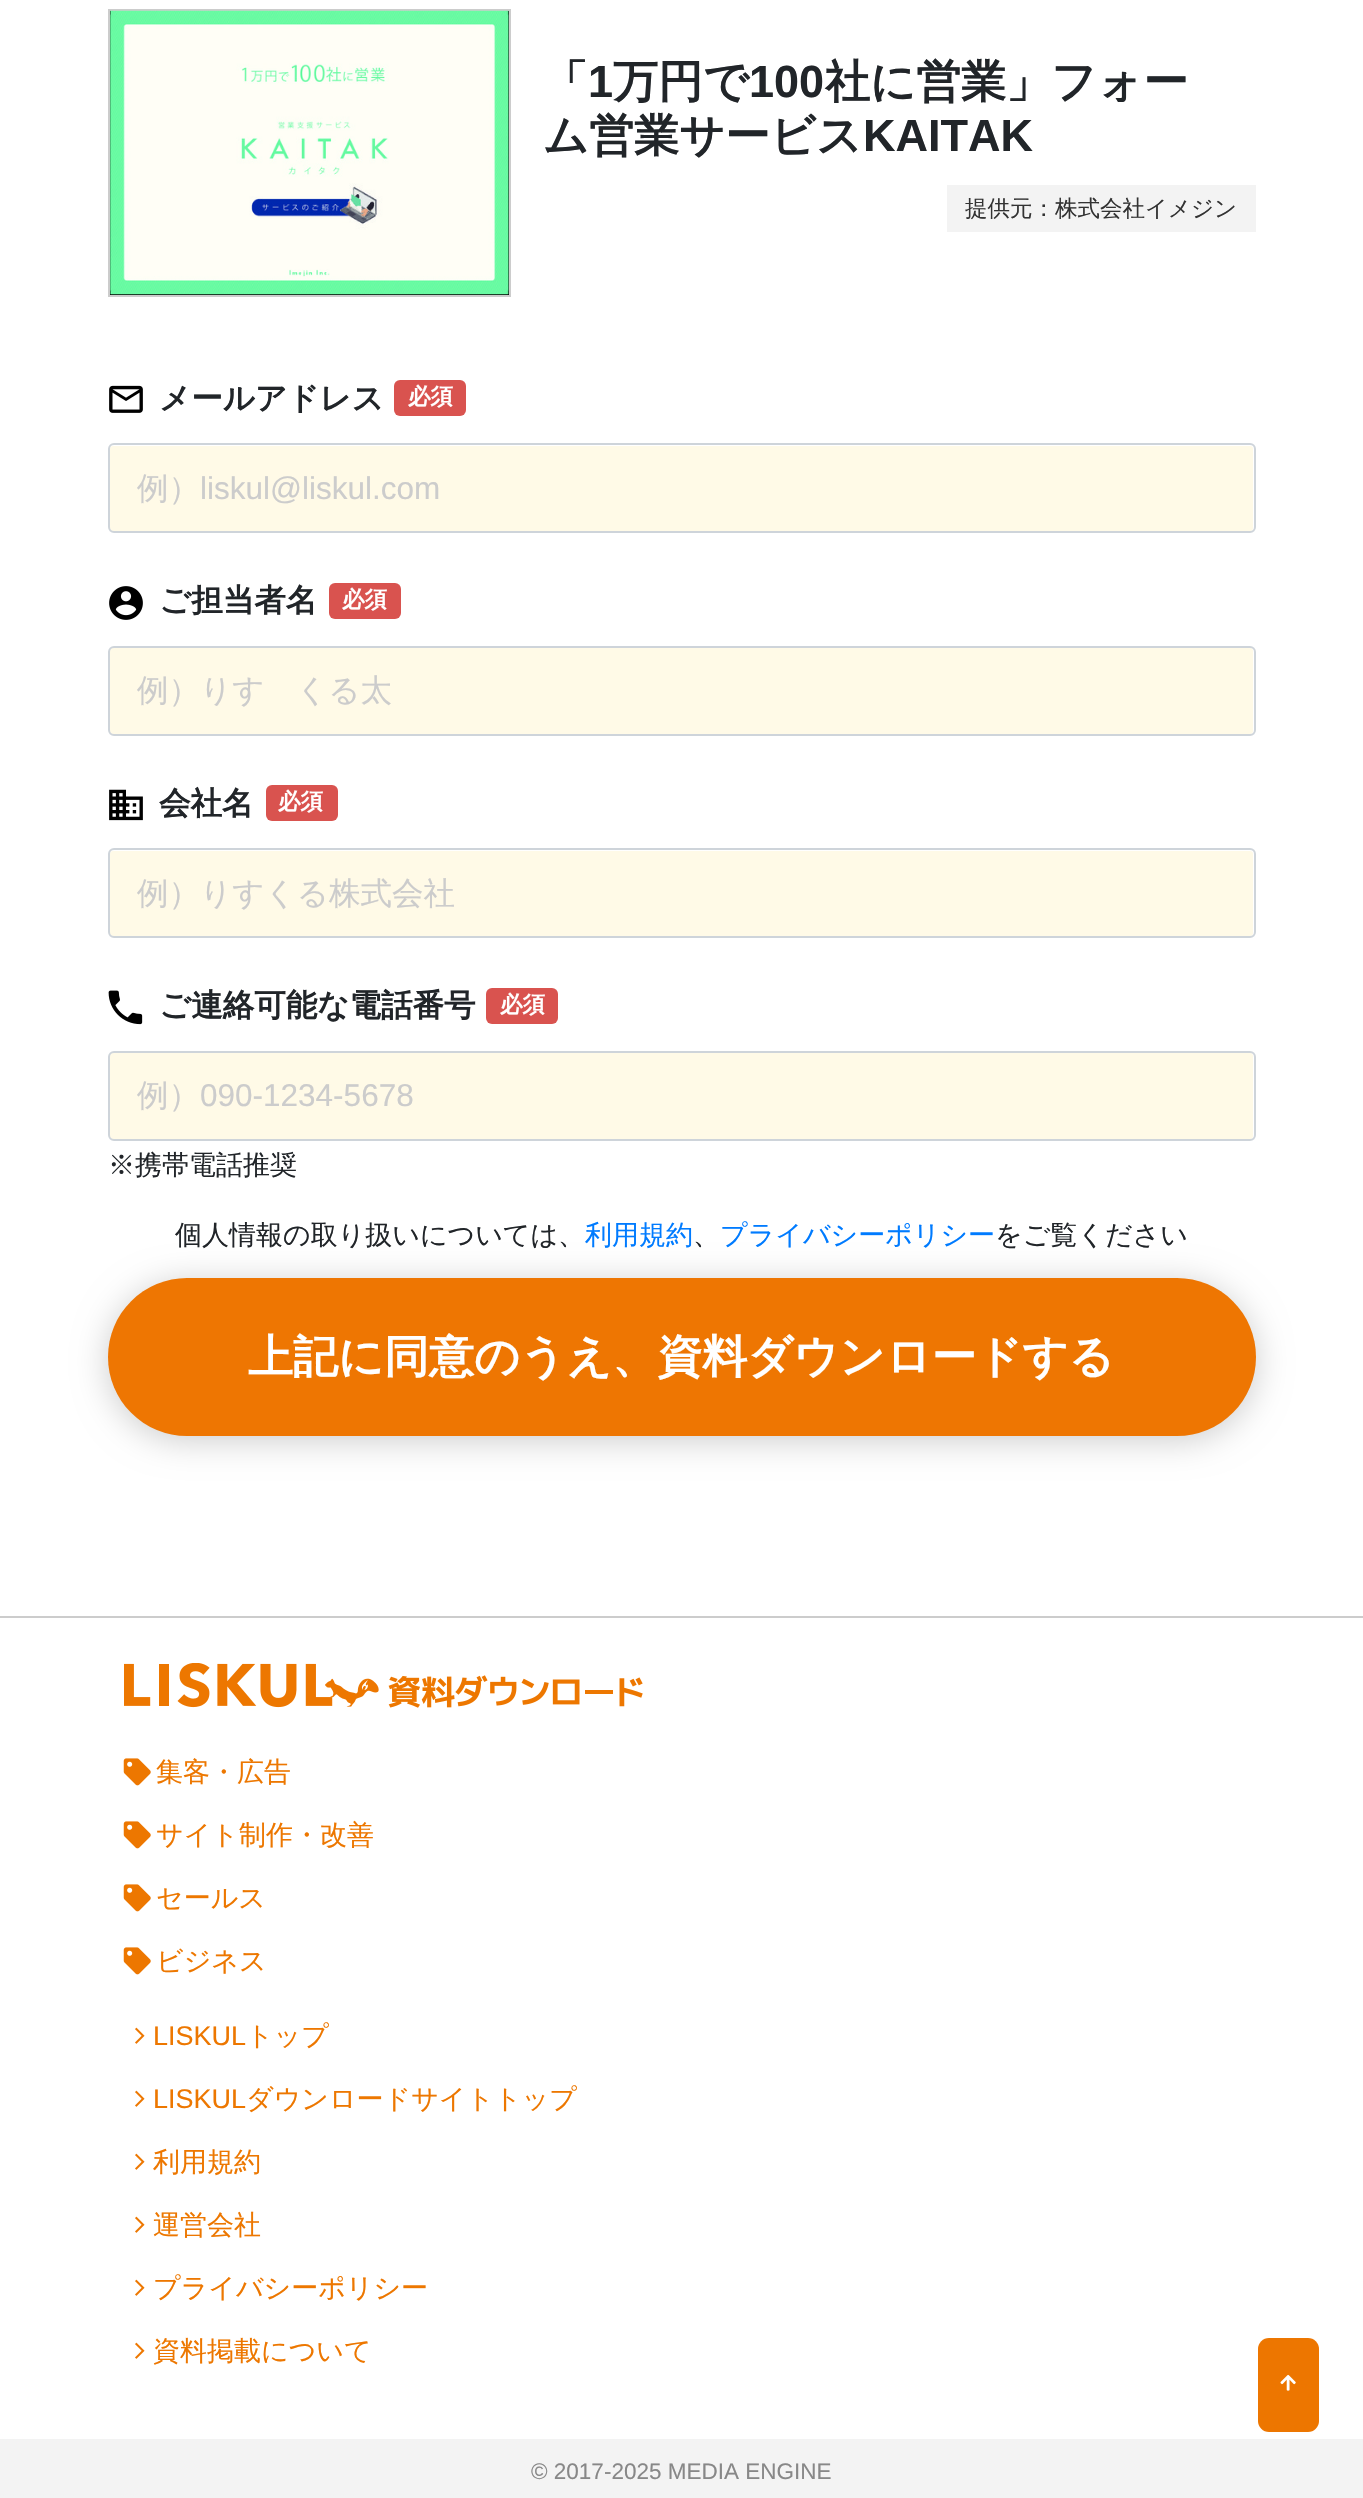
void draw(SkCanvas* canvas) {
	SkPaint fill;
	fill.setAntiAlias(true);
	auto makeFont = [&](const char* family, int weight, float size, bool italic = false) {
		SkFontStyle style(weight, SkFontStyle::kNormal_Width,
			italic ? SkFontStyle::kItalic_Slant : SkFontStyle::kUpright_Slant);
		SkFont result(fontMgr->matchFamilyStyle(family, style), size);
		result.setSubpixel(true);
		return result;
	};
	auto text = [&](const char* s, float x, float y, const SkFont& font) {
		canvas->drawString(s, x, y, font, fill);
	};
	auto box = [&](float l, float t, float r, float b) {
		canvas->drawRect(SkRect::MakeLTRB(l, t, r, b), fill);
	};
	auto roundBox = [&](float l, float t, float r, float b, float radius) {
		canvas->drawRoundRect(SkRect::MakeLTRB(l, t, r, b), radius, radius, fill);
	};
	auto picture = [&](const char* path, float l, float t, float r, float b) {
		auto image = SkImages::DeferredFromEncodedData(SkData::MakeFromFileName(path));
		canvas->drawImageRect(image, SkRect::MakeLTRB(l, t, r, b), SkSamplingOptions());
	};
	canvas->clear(0xFFFFFFFF);
	fill.setColor(0xFF000000);
	canvas->drawRect(SkRect::MakeLTRB(109, 10, 510, 296), fill);
	fill.setStyle(SkPaint::kStroke_Style);
	fill.setStrokeWidth(2);
	fill.setColor(0xFFCCCCCC);
	canvas->drawRect(SkRect::MakeLTRB(109, 10, 510, 296), fill);
	picture("image0.png", 110, 10, 509, 295);
	fill.setStyle(SkPaint::kFill_Style);
	fill.setColor(0xFFF3F3F3);
	box(947, 185, 1256, 232);
	picture("image1.png", 109, 385, 143, 413);
	fill.setColor(0xFFD9534F);
	roundBox(394, 380, 466, 416, 6);
	fill.setColor(0xFFFFFAE7);
	roundBox(110, 446, 1253, 531, 3);
	fill.setStyle(SkPaint::kStroke_Style);
	fill.setColor(0xFFCED4DA);
	canvas->drawRoundRect(SkRect::MakeLTRB(109, 444, 1255, 532), 5, 5, fill);
	picture("image2.png", 109, 586, 143, 620);
	fill.setStyle(SkPaint::kFill_Style);
	fill.setColor(0xFFD9534F);
	roundBox(329, 583, 401, 619, 6);
	fill.setColor(0xFFFFFAE7);
	roundBox(110, 648, 1253, 734, 3);
	fill.setStyle(SkPaint::kStroke_Style);
	fill.setColor(0xFFCED4DA);
	canvas->drawRoundRect(SkRect::MakeLTRB(109, 647, 1255, 735), 5, 5, fill);
	picture("image3.png", 109, 789, 143, 821);
	fill.setStyle(SkPaint::kFill_Style);
	fill.setColor(0xFFD9534F);
	roundBox(266, 785, 338, 821, 6);
	fill.setColor(0xFFFFFAE7);
	roundBox(110, 851, 1253, 936, 3);
	fill.setStyle(SkPaint::kStroke_Style);
	fill.setColor(0xFFCED4DA);
	canvas->drawRoundRect(SkRect::MakeLTRB(109, 849, 1255, 937), 5, 5, fill);
	picture("image4.png", 108, 990, 143, 1025);
	fill.setStyle(SkPaint::kFill_Style);
	fill.setColor(0xFFD9534F);
	roundBox(486, 988, 558, 1024, 6);
	fill.setColor(0xFFFFFAE7);
	roundBox(110, 1053, 1253, 1139, 3);
	fill.setStyle(SkPaint::kStroke_Style);
	fill.setColor(0xFFCED4DA);
	canvas->drawRoundRect(SkRect::MakeLTRB(109, 1052, 1255, 1140), 5, 5, fill);
	fill.setStyle(SkPaint::kFill_Style);
	fill.setColor(0x33000000);
	fill.setMaskFilter(SkMaskFilter::MakeBlur(kNormal_SkBlurStyle, 17));
	canvas->drawRoundRect(SkRect::MakeLTRB(108, 1283, 1256, 1440), 78.5f, 78.5f, fill);
	fill.setMaskFilter(nullptr);
	fill.setColor(0xFFEE7602);
	roundBox(108, 1278, 1256, 1436, 79);
	fill.setColor(0xFFCCCCCC);
	box(0, 1616, 1363, 1618);
	picture("image5.png", 124, 1663, 643, 1708);
	picture("image6.png", 123, 1758, 151, 1786);
	picture("image6.png", 123, 1821, 151, 1849);
	picture("image6.png", 123, 1884, 151, 1912);
	picture("image6.png", 123, 1947, 151, 1975);
	picture("image7.png", 135, 2027, 145, 2044);
	picture("image7.png", 135, 2090, 145, 2107);
	picture("image7.png", 135, 2153, 145, 2170);
	picture("image7.png", 135, 2216, 145, 2233);
	picture("image7.png", 135, 2279, 145, 2296);
	picture("image7.png", 135, 2342, 145, 2359);
	fill.setColor(0xFFF3F3F3);
	box(0, 2439, 1363, 2498);
	fill.setColor(0xFFED7600);
	roundBox(1258, 2338, 1319, 2432, 11);
	picture("image8.png", 1280, 2374, 1296, 2391);
	auto font1 = makeFont("WenQuanYi Zen Hei", 700, 45);
	fill.setColor(0xFF212529);
	text("「", 543, 97, font1);
	auto font2 = makeFont("Liberation Sans", 700, 45);
	text("1", 588, 97, font2);
	text("万円で", 613, 97, font1);
	text("100", 749, 97, font2);
	text("社に営業」フォー", 825, 97, font1);
	text("ム営業サービス", 543, 151, font1);
	text("KAITAK", 863, 151, font2);
	auto font3 = makeFont("WenQuanYi Zen Hei", 500, 22.5f);
	fill.setColor(0xFF333333);
	text("提供元：株式会社イメジン", 965, 216, font3);
	auto font4 = makeFont("WenQuanYi Zen Hei", 700, 31.5f);
	fill.setColor(0xFF212529);
	text("メールアドレス", 159, 409, font4);
	auto font5 = makeFont("WenQuanYi Zen Hei", 700, 22.5f);
	fill.setColor(0xFFFFFFFF);
	text("必須", 408, 404, font5);
	auto font6 = makeFont("WenQuanYi Zen Hei", 500, 31.5f);
	fill.setColor(0xFFCCCCCC);
	text("例）", 137, 499, font6);
	auto font7 = makeFont("Liberation Sans", 400, 31.5f);
	text("liskul@liskul.com", 200, 499, font7);
	fill.setColor(0xFF212529);
	text("ご担当者名", 159, 611, font4);
	fill.setColor(0xFFFFFFFF);
	text("必須", 342, 607, font5);
	fill.setColor(0xFFCCCCCC);
	text("例）りす　くる太", 137, 701, font6);
	fill.setColor(0xFF212529);
	text("会社名", 159, 814, font4);
	fill.setColor(0xFFFFFFFF);
	text("必須", 278, 809, font5);
	fill.setColor(0xFFCCCCCC);
	text("例）りすくる株式会社", 137, 904, font6);
	fill.setColor(0xFF212529);
	text("ご連絡可能な電話番号", 159, 1016, font4);
	fill.setColor(0xFFFFFFFF);
	text("必須", 500, 1012, font5);
	fill.setColor(0xFFCCCCCC);
	text("例）", 137, 1106, font6);
	text("090-1234-5678", 200, 1106, font7);
	auto font8 = makeFont("WenQuanYi Zen Hei", 500, 27);
	fill.setColor(0xFF212529);
	text("※携帯電話推奨", 108, 1174, font8);
	text("個人情報の取り扱いについては、", 175, 1244, font8);
	fill.setColor(0xFF007BFF);
	text("利用規約", 585, 1244, font8);
	fill.setColor(0xFF212529);
	text("、", 693, 1244, font8);
	fill.setColor(0xFF007BFF);
	text("プライバシーポリシー", 720, 1244, font8);
	fill.setColor(0xFF212529);
	text("をご覧ください", 995, 1244, font8);
	fill.setColor(0xFFFFFFFF);
	text("上記に同意のうえ、資料ダウンロードする", 248, 1372, font1);
	fill.setColor(0xFFED7700);
	text("集客・広告", 156, 1781, font8);
	text("サイト制作・改善", 156, 1844, font8);
	text("セールス", 156, 1907, font8);
	text("ビジネス", 156, 1970, font8);
	auto font9 = makeFont("Liberation Sans", 400, 27);
	text("LISKUL", 153, 2045, font9);
	text("トップ", 246, 2045, font8);
	text("LISKUL", 153, 2108, font9);
	text("ダウンロードサイトトップ", 246, 2108, font8);
	text("利用規約", 153, 2171, font8);
	text("運営会社", 153, 2234, font8);
	text("プライバシーポリシー", 153, 2297, font8);
	text("資料掲載について", 153, 2360, font8);
	auto font10 = makeFont("Liberation Sans", 400, 22.5f);
	fill.setColor(0xFF888888);
	text("© 2017-2025 MEDIA ENGINE", 531, 2479, font10);
}
